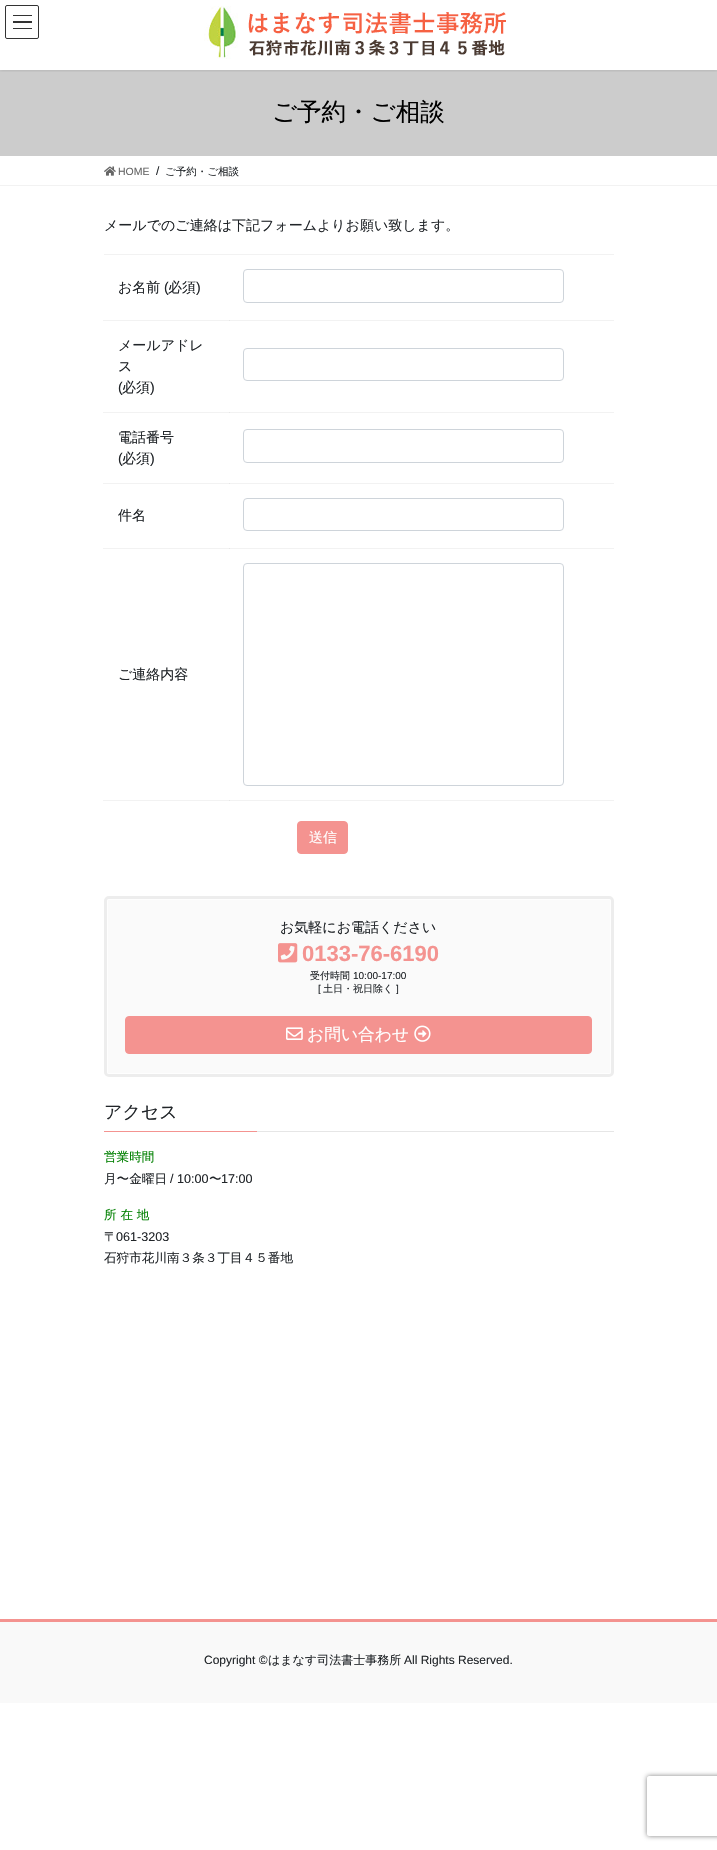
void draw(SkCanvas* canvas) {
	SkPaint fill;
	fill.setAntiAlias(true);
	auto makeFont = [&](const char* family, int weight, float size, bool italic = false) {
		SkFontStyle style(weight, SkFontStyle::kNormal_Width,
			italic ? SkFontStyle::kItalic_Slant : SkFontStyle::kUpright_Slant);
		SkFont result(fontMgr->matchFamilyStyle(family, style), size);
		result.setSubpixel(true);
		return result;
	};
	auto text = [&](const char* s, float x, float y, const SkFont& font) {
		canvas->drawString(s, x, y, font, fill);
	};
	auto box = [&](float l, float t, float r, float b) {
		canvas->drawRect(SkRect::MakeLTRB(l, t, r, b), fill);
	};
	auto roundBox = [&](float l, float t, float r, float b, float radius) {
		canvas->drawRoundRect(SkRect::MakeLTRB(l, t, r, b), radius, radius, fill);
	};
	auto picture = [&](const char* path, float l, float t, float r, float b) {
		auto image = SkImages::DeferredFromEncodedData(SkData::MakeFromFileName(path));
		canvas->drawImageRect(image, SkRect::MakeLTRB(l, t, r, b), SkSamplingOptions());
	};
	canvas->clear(0xFFFFFFFF);
	fill.setColor(0xFFF2F2F2);
	box(103, 320, 614, 321);
	box(103, 412, 614, 413);
	box(103, 483, 614, 484);
	box(103, 548, 614, 549);
	box(103, 800, 614, 801);
	fill.setColor(0xFFCCCCCC);
	box(0, 70, 717, 156);
	canvas->save();
	canvas->clipRect(SkRect::MakeLTRB(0, 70, 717, 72));
	fill.setColor(0x1A000000);
	fill.setMaskFilter(SkMaskFilter::MakeBlur(kNormal_SkBlurStyle, 1.5f));
	canvas->drawRect(SkRect::MakeLTRB(0, 1, 717, 71), fill);
	fill.setMaskFilter(nullptr);
	canvas->restore();
	picture("image0.png", 204, 6, 506, 59);
	fill.setColor(0xFF333333);
	box(13, 15, 32, 16);
	box(13, 21, 32, 23);
	box(13, 28, 32, 29);
	fill.setStyle(SkPaint::kStroke_Style);
	fill.setStrokeWidth(1);
	canvas->drawRoundRect(SkRect::MakeLTRB(5.5f, 5.5f, 38.5f, 38.5f), 1.5f, 1.5f, fill);
	fill.setStyle(SkPaint::kFill_Style);
	fill.setColor(0xFFF2F2F2);
	box(0, 185, 717, 186);
	picture("image1.png", 104, 166, 116, 176);
	box(104, 254, 614, 255);
	fill.setColor(0xFFE6E6E6);
	box(229, 320, 230, 321);
	fill.setStyle(SkPaint::kStroke_Style);
	fill.setColor(0xFFCED4DA);
	canvas->drawRoundRect(SkRect::MakeLTRB(243.5f, 269.5f, 563.5f, 302.5f), 3.5f, 3.5f, fill);
	fill.setStyle(SkPaint::kFill_Style);
	fill.setColor(0xFFE6E6E6);
	box(229, 412, 230, 413);
	fill.setStyle(SkPaint::kStroke_Style);
	fill.setColor(0xFFCED4DA);
	canvas->drawRoundRect(SkRect::MakeLTRB(243.5f, 348.5f, 563.5f, 380.5f), 3.5f, 3.5f, fill);
	fill.setStyle(SkPaint::kFill_Style);
	fill.setColor(0xFFE6E6E6);
	box(229, 483, 230, 484);
	fill.setStyle(SkPaint::kStroke_Style);
	fill.setColor(0xFFCED4DA);
	canvas->drawRoundRect(SkRect::MakeLTRB(243.5f, 429.5f, 563.5f, 462.5f), 3.5f, 3.5f, fill);
	fill.setStyle(SkPaint::kFill_Style);
	fill.setColor(0xFFE6E6E6);
	box(229, 548, 230, 549);
	fill.setStyle(SkPaint::kStroke_Style);
	fill.setColor(0xFFCED4DA);
	canvas->drawRoundRect(SkRect::MakeLTRB(243.5f, 498.5f, 563.5f, 530.5f), 3.5f, 3.5f, fill);
	fill.setStyle(SkPaint::kFill_Style);
	fill.setColor(0xFFE6E6E6);
	box(229, 800, 230, 801);
	fill.setStyle(SkPaint::kStroke_Style);
	fill.setColor(0xFFCED4DA);
	canvas->drawRoundRect(SkRect::MakeLTRB(243.5f, 563.5f, 563.5f, 785.5f), 3.5f, 3.5f, fill);
	fill.setStyle(SkPaint::kFill_Style);
	fill.setColor(0xFFF49390);
	canvas->drawRoundRect(SkRect::MakeLTRB(297.5f, 821.5f, 347.5f, 853.5f), 3.5f, 3.5f, fill);
	fill.setStyle(SkPaint::kStroke_Style);
	canvas->drawRoundRect(SkRect::MakeLTRB(297.5f, 821.5f, 347.5f, 853.5f), 3.5f, 3.5f, fill);
	fill.setStrokeWidth(3);
	fill.setColor(0xFFEDEDED);
	canvas->drawRoundRect(SkRect::MakeLTRB(105.5f, 897.5f, 612.5f, 1075.5f), 3.5f, 3.5f, fill);
	fill.setStyle(SkPaint::kFill_Style);
	fill.setColor(0xFFFAFAFA);
	roundBox(107, 899, 611, 1074, 2);
	fill.setColor(0xFFFEFEFE);
	canvas->drawPath(SkPathBuilder(SkPathFillType::kEvenOdd).moveTo(109, 899).cubicTo(108, 899, 107, 900, 107, 901).lineTo(107, 1072).cubicTo(107, 1073, 108, 1074, 109, 1074).lineTo(609, 1074).cubicTo(610, 1074, 611, 1073, 611, 1072).lineTo(611, 901).cubicTo(611, 900, 610, 899, 609, 899).close().moveTo(108, 900).lineTo(108, 1073).lineTo(610, 1073).lineTo(610, 900).close().detach(), fill);
	picture("image2.png", 278, 943, 298, 963);
	fill.setColor(0xFFF49390);
	canvas->drawRoundRect(SkRect::MakeLTRB(125.5f, 1016.5f, 591.5f, 1053.5f), 3.5f, 3.5f, fill);
	fill.setStyle(SkPaint::kStroke_Style);
	fill.setStrokeWidth(1);
	canvas->drawRoundRect(SkRect::MakeLTRB(125.5f, 1016.5f, 591.5f, 1053.5f), 3.5f, 3.5f, fill);
	picture("image3.png", 286, 1027, 303, 1040);
	picture("image4.png", 414, 1025, 431, 1042);
	fill.setStyle(SkPaint::kFill_Style);
	fill.setColor(0xFFE6E6E6);
	box(257, 1131, 614, 1132);
	fill.setColor(0xFFF49390);
	box(104, 1131, 257, 1132);
	fill.setColor(0xFFF9F9F9);
	box(0, 1622, 717, 1703);
	fill.setColor(0xFFF49390);
	box(0, 1619, 717, 1622);
	canvas->save();
	canvas->clipPath(SkPathBuilder(SkPathFillType::kEvenOdd).moveTo(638, 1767).lineTo(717, 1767).lineTo(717, 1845).lineTo(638, 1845).close().moveTo(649, 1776).lineTo(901, 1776).cubicTo(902, 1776, 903, 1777, 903, 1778).lineTo(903, 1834).cubicTo(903, 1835, 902, 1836, 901, 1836).lineTo(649, 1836).cubicTo(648, 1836, 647, 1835, 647, 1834).lineTo(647, 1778).cubicTo(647, 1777, 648, 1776, 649, 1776).close().detach(), true);
	fill.setColor(0xFF808080);
	fill.setMaskFilter(SkMaskFilter::MakeBlur(kNormal_SkBlurStyle, 2.5f));
	canvas->drawRoundRect(SkRect::MakeLTRB(647, 1776, 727, 1836), 2, 2, fill);
	fill.setMaskFilter(nullptr);
	canvas->restore();
	auto font1 = makeFont("WenQuanYi Zen Hei", 500, 24.5f);
	fill.setColor(0xFF000000);
	text("ご予約・ご相談", 272, 120, font1);
	auto font2 = makeFont("Liberation Sans", 400, 10.5f);
	fill.setColor(0xFF666666);
	text("HOME", 118, 175, font2);
	auto font3 = makeFont("Liberation Sans", 400, 12);
	fill.setColor(0xFF212529);
	text("/", 156, 175, font3);
	auto font4 = makeFont("WenQuanYi Zen Hei", 500, 10.5f);
	text("ご予約・ご相談", 165, 175, font4);
	auto font5 = makeFont("WenQuanYi Zen Hei", 500, 14);
	text("メールでのご連絡は下記フォームよりお願い致します。", 104, 230, font5);
	text("お名前", 118, 292, font5);
	auto font6 = makeFont("Liberation Sans", 400, 14);
	text("(", 164, 292, font6);
	text("必須", 168, 292, font5);
	text(")", 196, 292, font6);
	text("メールアドレ", 118, 350, font5);
	text("ス", 118, 371, font5);
	text("(", 118, 392, font6);
	text("必須", 122, 392, font5);
	text(")", 150, 392, font6);
	text("電話番号", 118, 442, font5);
	text("(", 118, 463, font6);
	text("必須", 122, 463, font5);
	text(")", 150, 463, font6);
	text("件名", 118, 520, font5);
	text("ご連絡内容", 118, 679, font5);
	fill.setColor(0xFFFFFFFF);
	text("送信", 309, 842, font5);
	fill.setColor(0xFF212529);
	text("お気軽にお電話ください", 280, 932, font5);
	auto font7 = makeFont("Liberation Sans", 700, 22);
	fill.setColor(0xFFF49390);
	text("0133-76-6190", 302, 961, font7);
	auto font8 = makeFont("WenQuanYi Zen Hei", 500, 10);
	fill.setColor(0xFF212529);
	text("受付時間", 310, 979, font8);
	auto font9 = makeFont("Liberation Sans", 400, 10);
	text("10:00-17:00", 353, 979, font9);
	text("[", 318, 992, font9);
	text("土日・祝日除く", 323, 992, font8);
	text("]", 396, 992, font9);
	auto font10 = makeFont("WenQuanYi Zen Hei", 500, 16.75f);
	fill.setColor(0xFFFFFFFF);
	text("お問い合わせ", 307, 1040, font10);
	auto font11 = makeFont("WenQuanYi Zen Hei", 500, 18);
	fill.setColor(0xFF212529);
	text("アクセス", 104, 1118, font11);
	auto font12 = makeFont("WenQuanYi Zen Hei", 500, 12.6f);
	fill.setColor(0xFF008000);
	text("営業時間", 104, 1161, font12);
	fill.setColor(0xFF212529);
	text("月〜金曜日", 104, 1183, font12);
	auto font13 = makeFont("Liberation Sans", 400, 12.6f);
	text("/ 10:00", 170, 1183, font13);
	text("〜", 209, 1183, font12);
	text("17:00", 221, 1183, font13);
	fill.setColor(0xFF008000);
	text("所 在 地", 104, 1219, font12);
	fill.setColor(0xFF212529);
	text("〒", 104, 1241, font12);
	text("061-3203", 116, 1241, font13);
	text("石狩市花川南３条３丁目４５番地", 104, 1262, font12);
	text("Copyright ©", 204, 1664, font3);
	auto font14 = makeFont("WenQuanYi Zen Hei", 500, 12);
	text("はまなす司法書士事務所", 268, 1664, font14);
	text("All Rights Reserved.", 404, 1664, font3);
}
